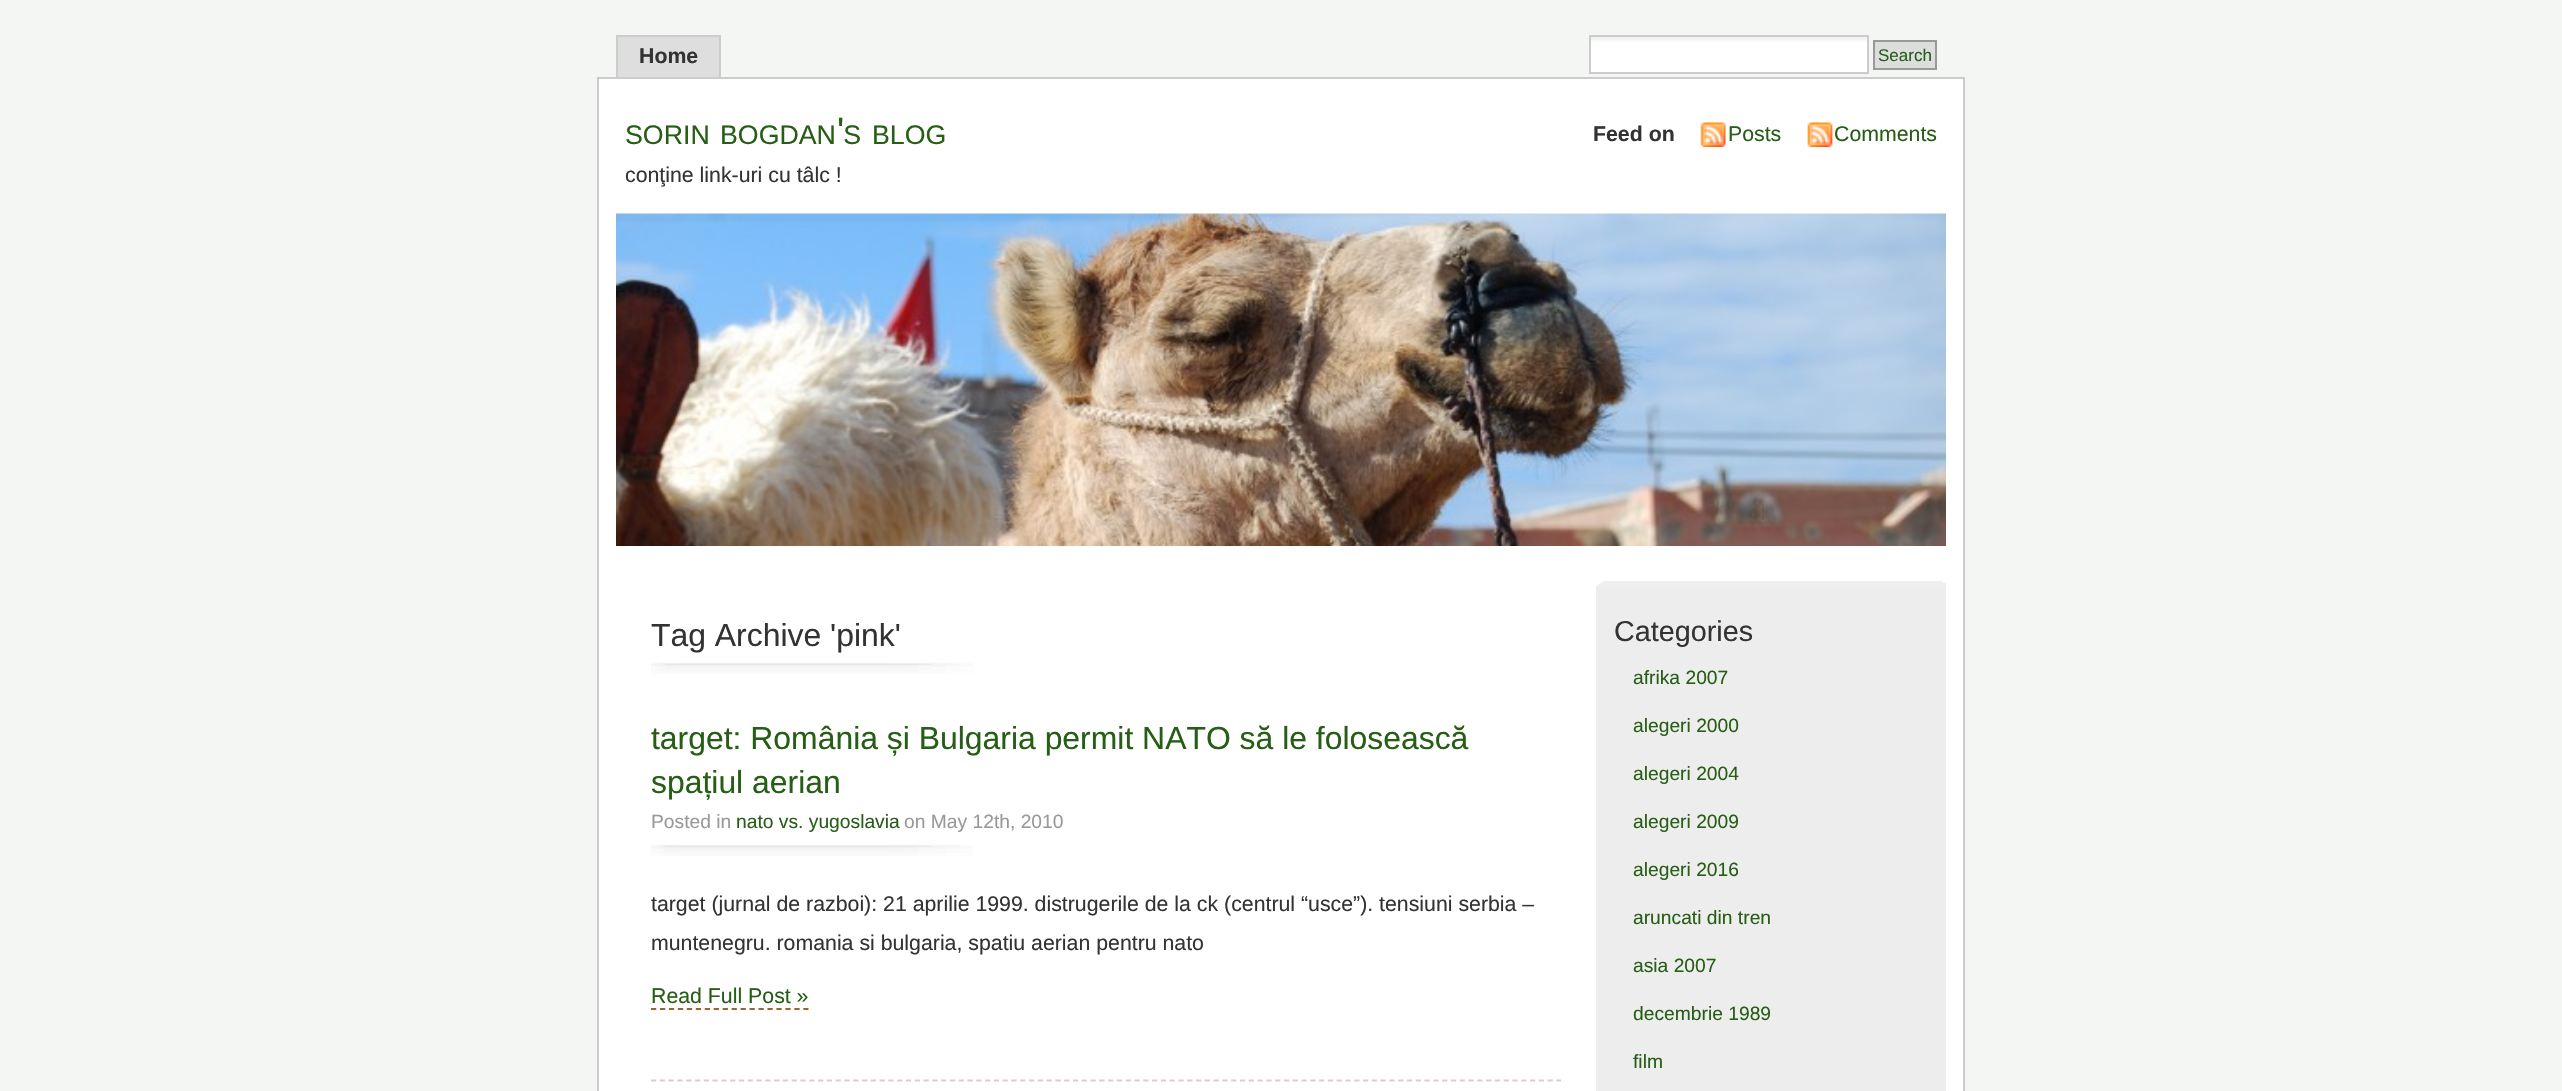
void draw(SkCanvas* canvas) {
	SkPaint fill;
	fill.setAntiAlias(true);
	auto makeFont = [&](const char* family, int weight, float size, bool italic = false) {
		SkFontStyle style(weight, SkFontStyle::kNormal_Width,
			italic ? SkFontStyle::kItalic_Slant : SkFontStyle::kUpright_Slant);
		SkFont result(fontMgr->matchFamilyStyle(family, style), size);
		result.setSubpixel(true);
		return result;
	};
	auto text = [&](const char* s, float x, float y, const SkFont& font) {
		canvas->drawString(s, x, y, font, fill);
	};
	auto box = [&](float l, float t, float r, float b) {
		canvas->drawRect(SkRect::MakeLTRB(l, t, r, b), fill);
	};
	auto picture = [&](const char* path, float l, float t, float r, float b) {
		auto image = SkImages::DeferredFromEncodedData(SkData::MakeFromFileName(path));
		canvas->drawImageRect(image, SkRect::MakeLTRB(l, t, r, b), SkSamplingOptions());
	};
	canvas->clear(0xFFF3F6F3);
	fill.setColor(0xFFDEDEDE);
	box(618, 37, 719, 77);
	fill.setColor(0xFFCCCCCC);
	box(616, 35, 721, 37);
	box(719, 35, 721, 77);
	box(616, 35, 618, 77);
	fill.setColor(0xFFFFFFFF);
	box(1591, 42, 1867, 72);
	picture("image0.png", 1591, 37, 1867, 42);
	fill.setStyle(SkPaint::kStroke_Style);
	fill.setStrokeWidth(2);
	fill.setColor(0xFFCCCCCC);
	canvas->drawRect(SkRect::MakeLTRB(1590, 36, 1868, 73), fill);
	fill.setStyle(SkPaint::kFill_Style);
	fill.setColor(0xFFDDDDDD);
	canvas->drawRect(SkRect::MakeLTRB(1874, 41, 1936, 69), fill);
	fill.setStyle(SkPaint::kStroke_Style);
	fill.setColor(0xFF999999);
	canvas->drawRect(SkRect::MakeLTRB(1874, 41, 1936, 69), fill);
	fill.setStyle(SkPaint::kFill_Style);
	fill.setColor(0xFFFFFFFF);
	canvas->drawRect(SkRect::MakeLTRB(598, 78, 1964, 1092), fill);
	fill.setStyle(SkPaint::kStroke_Style);
	fill.setColor(0xFFCCCCCC);
	canvas->drawRect(SkRect::MakeLTRB(598, 78, 1964, 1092), fill);
	picture("image1.png", 1700, 122, 1726, 147);
	picture("image2.png", 1807, 122, 1833, 147);
	picture("image3.png", 616, 213, 1946, 546);
	picture("image4.png", 651, 662, 973, 674);
	fill.setStrokeWidth(1.8f);
	fill.setColor(0xFFDDCCCC);
	fill.setPathEffect(SkDashPathEffect::Make({{5.25f, 3.54f}}, 0));
	canvas->drawPath(SkPathBuilder().moveTo(651, 1080.5f).lineTo(1561, 1080.5f).detach(), fill);
	fill.setPathEffect(nullptr);
	picture("image4.png", 651, 844, 973, 856);
	fill.setColor(0xFF996633);
	fill.setPathEffect(SkDashPathEffect::Make({{5.25f, 3.71f}}, 0));
	canvas->drawPath(SkPathBuilder().moveTo(651, 1009).lineTo(808.5f, 1009).detach(), fill);
	fill.setPathEffect(nullptr);
	fill.setStyle(SkPaint::kFill_Style);
	fill.setColor(0xFFEDEDED);
	box(1596, 587, 1946, 1091);
	picture("image5.png", 1596, 581, 1946, 587);
	auto font1 = makeFont("Liberation Sans", 700, 21.3f);
	fill.setColor(0xFF333333);
	text("Home", 639, 63, font1);
	auto font2 = makeFont("Liberation Sans", 400, 17);
	fill.setColor(0xFF265E15);
	text("Search", 1878, 61, font2);
	auto font3 = makeFont("Liberation Sans", 400, 38);
	text("'", 837, 144, font3);
	auto font4 = makeFont("Liberation Sans", 400, 26.75f);
	text("SORIN", 625, 144, font4);
	text("BOGDAN S", 720, 144, font4);
	text("BLOG", 872, 144, font4);
	auto font5 = makeFont("Liberation Sans", 400, 21.3f);
	fill.setColor(0xFF333333);
	text("conţine link-uri cu tâlc !", 625, 182, font5);
	text("Feed on", 1593, 141, font1);
	fill.setColor(0xFF265E15);
	text("Posts", 1728, 141, font5);
	text("Comments", 1834, 141, font5);
	auto font6 = makeFont("Liberation Sans", 400, 31.9f);
	fill.setColor(0xFF333333);
	text("Tag Archive 'pink'", 651, 646, font6);
	fill.setColor(0xFF265E15);
	text("target: România și Bulgaria permit NATO să le folosească", 651, 749, font6);
	text("spațiul aerian", 651, 793, font6);
	auto font7 = makeFont("Liberation Sans", 400, 19.25f);
	fill.setColor(0xFF999999);
	text("Posted in", 651, 828, font7);
	fill.setColor(0xFF265E15);
	text("nato vs. yugoslavia", 736, 828, font7);
	fill.setColor(0xFF999999);
	text("on May 12th, 2010", 904, 828, font7);
	fill.setColor(0xFF333333);
	text("target (jurnal de razboi): 21 aprilie 1999. distrugerile de la ck (centrul “usce”). tensiuni serbia –", 651, 911, font5);
	text("muntenegru. romania si bulgaria, spatiu aerian pentru nato", 651, 950, font5);
	fill.setColor(0xFF265E15);
	text("Read Full Post »", 651, 1003, font5);
	auto font8 = makeFont("Liberation Sans", 400, 28.75f);
	fill.setColor(0xFF333333);
	text("Categories", 1614, 641, font8);
	fill.setColor(0xFF265E15);
	text("afrika 2007", 1633, 684, font7);
	text("alegeri 2000", 1633, 732, font7);
	text("alegeri 2004", 1633, 780, font7);
	text("alegeri 2009", 1633, 828, font7);
	text("alegeri 2016", 1633, 876, font7);
	text("aruncati din tren", 1633, 924, font7);
	text("asia 2007", 1633, 972, font7);
	text("decembrie 1989", 1633, 1020, font7);
	text("film", 1633, 1068, font7);
}
